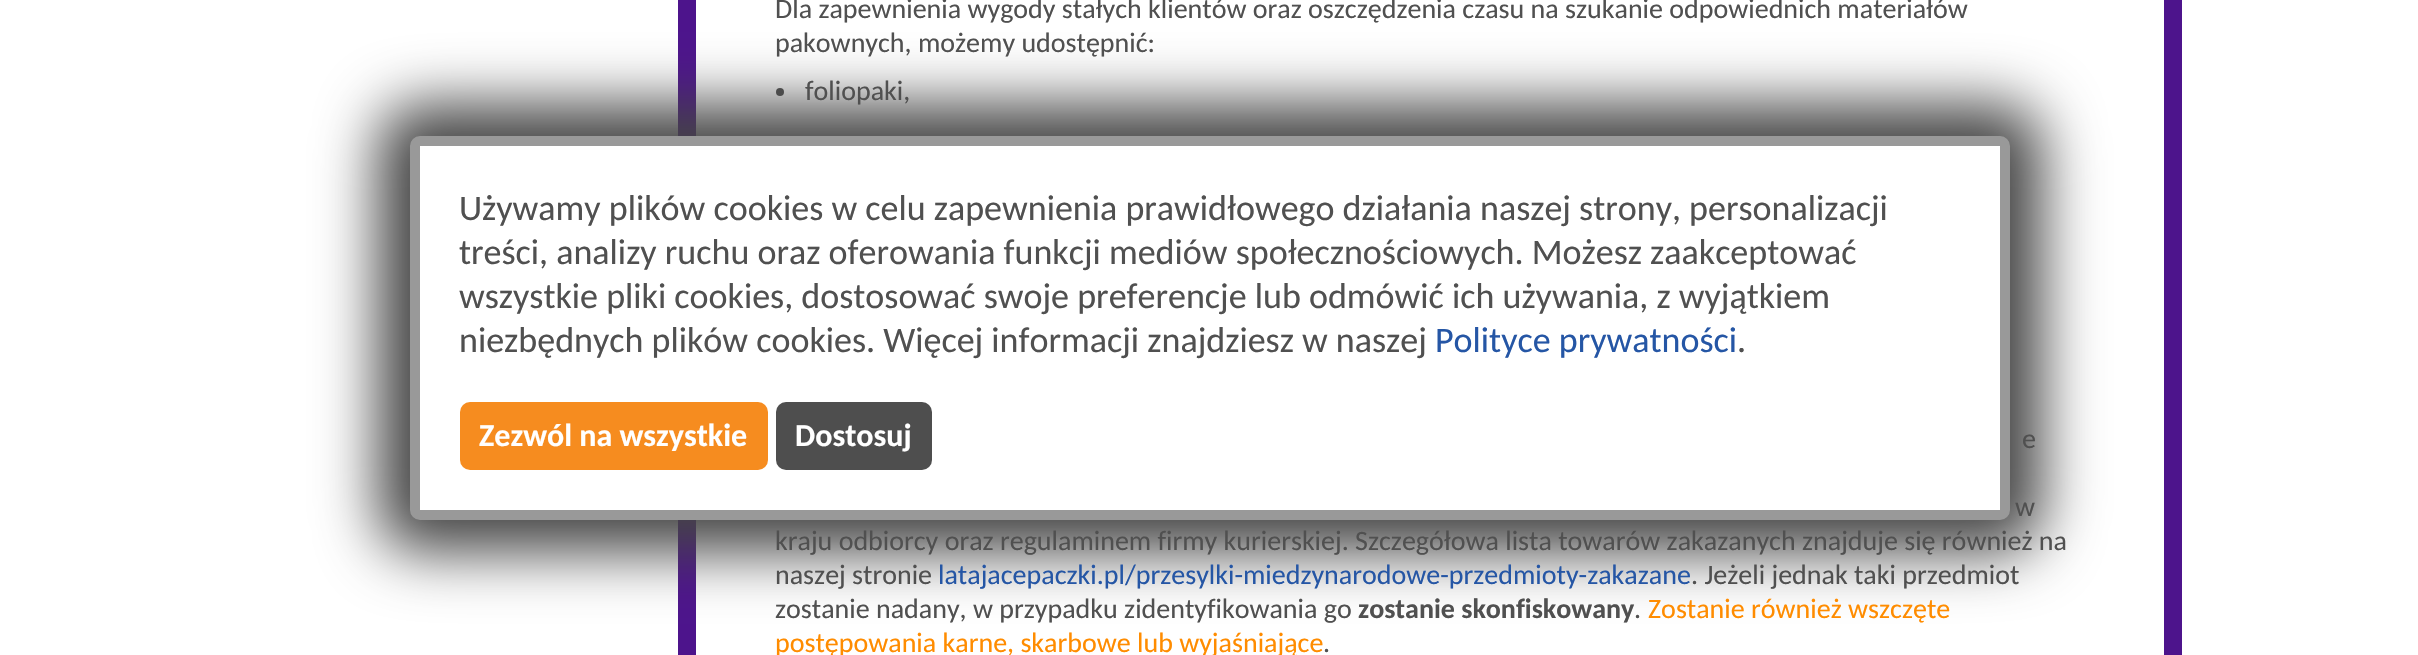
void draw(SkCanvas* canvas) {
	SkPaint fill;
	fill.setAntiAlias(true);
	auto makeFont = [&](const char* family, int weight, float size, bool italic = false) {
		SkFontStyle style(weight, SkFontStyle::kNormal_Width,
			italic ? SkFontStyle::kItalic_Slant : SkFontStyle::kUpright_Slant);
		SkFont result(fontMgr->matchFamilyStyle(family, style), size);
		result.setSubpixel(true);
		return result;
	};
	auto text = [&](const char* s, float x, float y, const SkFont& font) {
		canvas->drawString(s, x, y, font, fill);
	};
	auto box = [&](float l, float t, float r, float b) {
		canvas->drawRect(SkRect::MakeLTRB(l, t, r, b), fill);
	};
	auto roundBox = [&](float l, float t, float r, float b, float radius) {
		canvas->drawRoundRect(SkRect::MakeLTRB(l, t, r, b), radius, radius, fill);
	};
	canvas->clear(0xFFFFFFFF);
	fill.setColor(0xFF4D148C);
	box(678, 0, 2182, 655);
	fill.setColor(0xFFFFFFFF);
	box(696, 0, 2164, 655);
	fill.setColor(0xFF505050);
	canvas->drawCircle(780, 92, 4, fill);
	fill.setColor(0xFF444444);
	fill.setMaskFilter(SkMaskFilter::MakeBlur(kNormal_SkBlurStyle, 30));
	canvas->drawRoundRect(SkRect::MakeLTRB(378, 104, 2042, 552), 42, 42, fill);
	fill.setMaskFilter(nullptr);
	fill.setColor(0xFFFFFFFF);
	canvas->drawRoundRect(SkRect::MakeLTRB(415, 141, 2005, 515), 5, 5, fill);
	fill.setStyle(SkPaint::kStroke_Style);
	fill.setStrokeWidth(10);
	fill.setColor(0xFF999999);
	canvas->drawRoundRect(SkRect::MakeLTRB(415, 141, 2005, 515), 5, 5, fill);
	fill.setStyle(SkPaint::kFill_Style);
	fill.setColor(0xFFF68C1F);
	roundBox(460, 402, 768, 470, 10);
	fill.setColor(0xFF4E4E4E);
	roundBox(776, 402, 932, 470, 10);
	auto font1 = makeFont("Carlito", 400, 28);
	fill.setColor(0xFF505050);
	text("Dla zapewnienia wygody stałych klientów oraz oszczędzenia czasu na szukanie odpowiednich materiałów", 775, 18, font1);
	text("pakownych, możemy udostępnić:", 775, 52, font1);
	text("foliopaki,", 805, 100, font1);
	text("e", 2022, 448, font1);
	text("w", 2015, 516, font1);
	text("kraju odbiorcy oraz regulaminem firmy kurierskiej. Szczegółowa lista towarów zakazanych znajduje się również na", 775, 550, font1);
	text("naszej stronie", 775, 584, font1);
	fill.setColor(0xFF2556A5);
	text("latajacepaczki.pl/przesylki-miedzynarodowe-przedmioty-zakazane", 938, 584, font1);
	fill.setColor(0xFF505050);
	text(". Jeżeli jednak taki przedmiot", 1691, 584, font1);
	text("zostanie nadany, w przypadku zidentyfikowania go", 775, 618, font1);
	auto font2 = makeFont("Carlito", 700, 28);
	text("zostanie skonfiskowany", 1358, 618, font2);
	text(".", 1634, 618, font1);
	fill.setColor(0xFFFF8C00);
	text("Zostanie również wszczęte", 1648, 618, font1);
	text("postępowania karne, skarbowe lub wyjaśniające", 775, 652, font1);
	fill.setColor(0xFF505050);
	text(".", 1323, 652, font1);
	auto font3 = makeFont("Carlito", 400, 36);
	text("Używamy plików cookies w celu zapewnienia prawidłowego działania naszej strony, personalizacji", 459, 220, font3);
	text("treści, analizy ruchu oraz oferowania funkcji mediów społecznościowych. Możesz zaakceptować", 459, 264, font3);
	text("wszystkie pliki cookies, dostosować swoje preferencje lub odmówić ich używania, z wyjątkiem", 459, 308, font3);
	text("niezbędnych plików cookies. Więcej informacji znajdziesz w naszej", 459, 352, font3);
	fill.setColor(0xFF2556A5);
	text("Polityce prywatności", 1435, 352, font3);
	fill.setColor(0xFF505050);
	text(".", 1737, 352, font3);
	auto font4 = makeFont("Carlito", 700, 32);
	fill.setColor(0xFFFFFFFF);
	text("Zezwól na wszystkie", 479, 446, font4);
	text("Dostosuj", 795, 446, font4);
}
